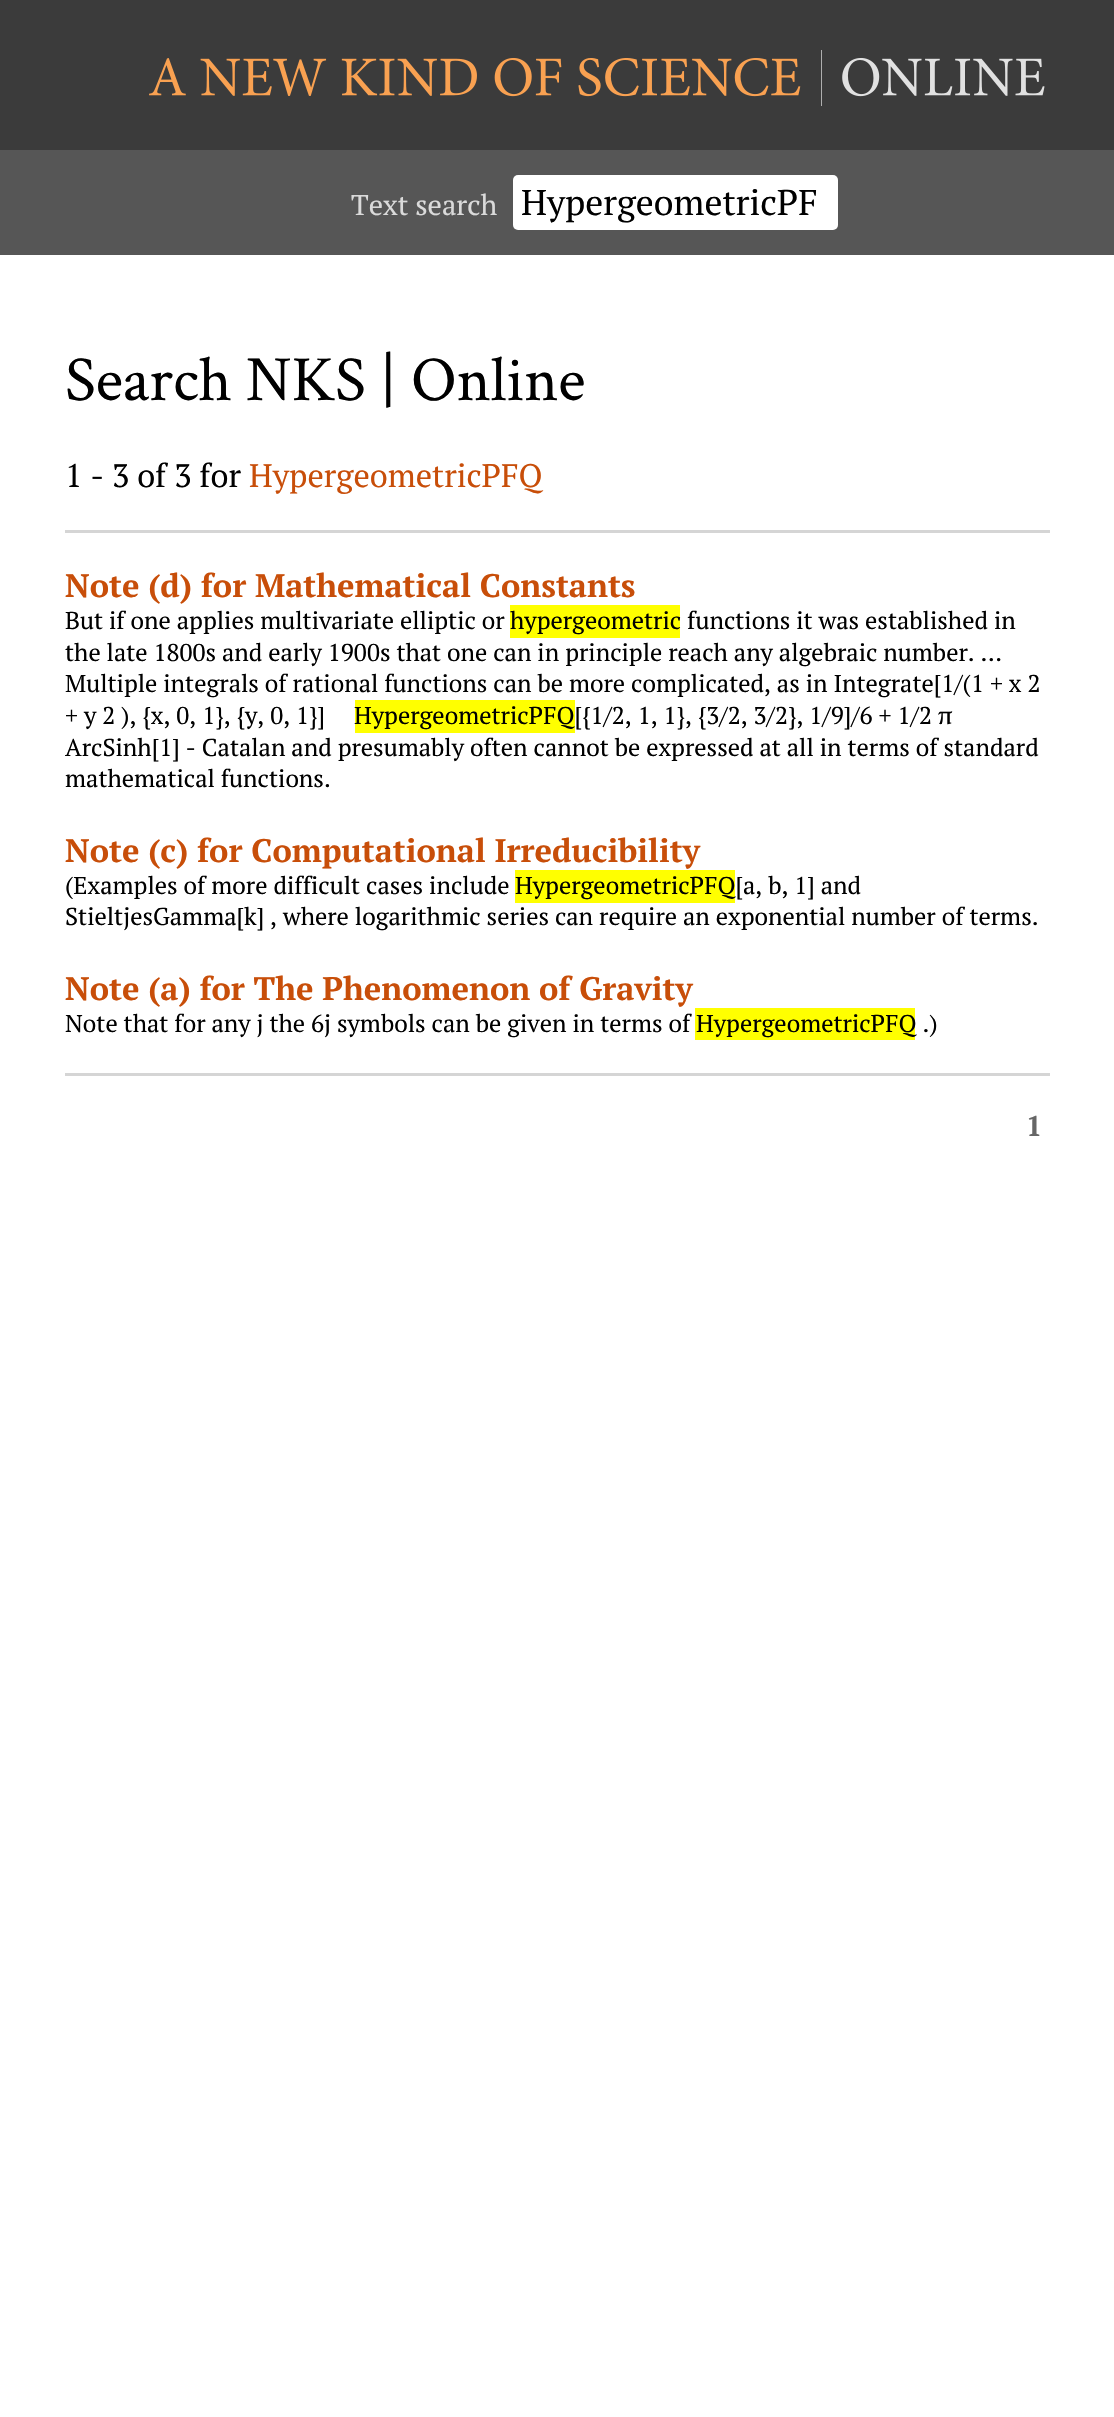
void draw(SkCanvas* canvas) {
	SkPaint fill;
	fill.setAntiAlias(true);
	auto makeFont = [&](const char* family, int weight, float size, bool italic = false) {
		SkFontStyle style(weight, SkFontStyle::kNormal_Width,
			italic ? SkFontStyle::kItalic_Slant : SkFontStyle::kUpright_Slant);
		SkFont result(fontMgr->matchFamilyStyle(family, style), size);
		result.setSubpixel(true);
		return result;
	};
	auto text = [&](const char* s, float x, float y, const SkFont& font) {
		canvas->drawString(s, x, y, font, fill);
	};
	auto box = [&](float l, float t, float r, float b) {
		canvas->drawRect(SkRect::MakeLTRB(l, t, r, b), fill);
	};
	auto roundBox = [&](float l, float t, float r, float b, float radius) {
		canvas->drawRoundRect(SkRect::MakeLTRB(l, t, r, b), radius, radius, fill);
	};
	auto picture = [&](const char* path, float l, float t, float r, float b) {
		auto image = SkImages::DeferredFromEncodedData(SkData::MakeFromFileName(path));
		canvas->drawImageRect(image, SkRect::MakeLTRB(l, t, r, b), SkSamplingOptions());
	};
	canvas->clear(0xFFFFFFFF);
	fill.setColor(0xFF3B3B3B);
	box(0, 0, 1114, 150);
	picture("image0.png", 149, 50, 1045, 106);
	fill.setColor(0xFF565656);
	box(0, 150, 1114, 255);
	fill.setColor(0xFFFFFFFF);
	roundBox(513, 175, 838, 230, 5);
	fill.setColor(0xFFD5D5D5);
	box(65, 530, 1050, 533);
	fill.setColor(0xFFFFFF00);
	box(510, 605, 680, 638);
	box(355, 700, 575, 733);
	box(515, 870, 735, 903);
	box(695, 1008, 915, 1040);
	fill.setColor(0xFFD5D5D5);
	box(65, 1073, 1050, 1076);
	auto font1 = makeFont("PT Serif", 400, 28.5f);
	fill.setColor(0xFFDADADA);
	text("Text search", 351, 215, font1);
	auto font2 = makeFont("PT Serif", 400, 35.75f);
	fill.setColor(0xFF000000);
	text("HypergeometricPF", 521, 215, font2);
	auto font3 = makeFont("Crimson Text", 400, 64.25f);
	text("Search NKS | Online", 65, 400, font3);
	auto font4 = makeFont("PT Serif", 400, 32.5f);
	text("1 - 3 of 3 for", 65, 487, font4);
	fill.setColor(0xFFC84E09);
	text("HypergeometricPFQ", 249, 487, font4);
	auto font5 = makeFont("PT Serif", 700, 32.5f);
	text("Note (d) for Mathematical Constants", 65, 597, font5);
	auto font6 = makeFont("PT Serif", 400, 24.4f);
	fill.setColor(0xFF000000);
	text("But if one applies multivariate elliptic or", 65, 629, font6);
	text("hypergeometric functions it was established in", 510, 629, font6);
	text("the late 1800s and early 1900s that one can in principle reach any algebraic number. …", 65, 661, font6);
	text("Multiple integrals of rational functions can be more complicated, as in Integrate[1/(1 + x 2", 65, 692, font6);
	text("+ y 2 ), {x, 0, 1}, {y, 0, 1}] ", 65, 724, font6);
	text("HypergeometricPFQ[{1/2, 1, 1}, {3/2, 3/2}, 1/9]/6 + 1/2 π", 354, 724, font6);
	text("ArcSinh[1] - Catalan and presumably often cannot be expressed at all in terms of standard", 65, 756, font6);
	text("mathematical functions.", 65, 787, font6);
	fill.setColor(0xFFC84E09);
	text("Note (c) for Computational Irreducibility", 65, 862, font5);
	fill.setColor(0xFF000000);
	text("(Examples of more difficult cases include", 65, 894, font6);
	text("HypergeometricPFQ[a, b, 1] and", 515, 894, font6);
	text("StieltjesGamma[k] , where logarithmic series can require an exponential number of terms.", 65, 925, font6);
	fill.setColor(0xFFC84E09);
	text("Note (a) for The Phenomenon of Gravity", 65, 1000, font5);
	fill.setColor(0xFF000000);
	text("Note that for any j the 6j symbols can be given in terms of", 65, 1032, font6);
	text("HypergeometricPFQ .)", 696, 1032, font6);
	auto font7 = makeFont("PT Serif", 700, 28.5f);
	fill.setColor(0xFF666666);
	text("1", 1026, 1136, font7);
}
